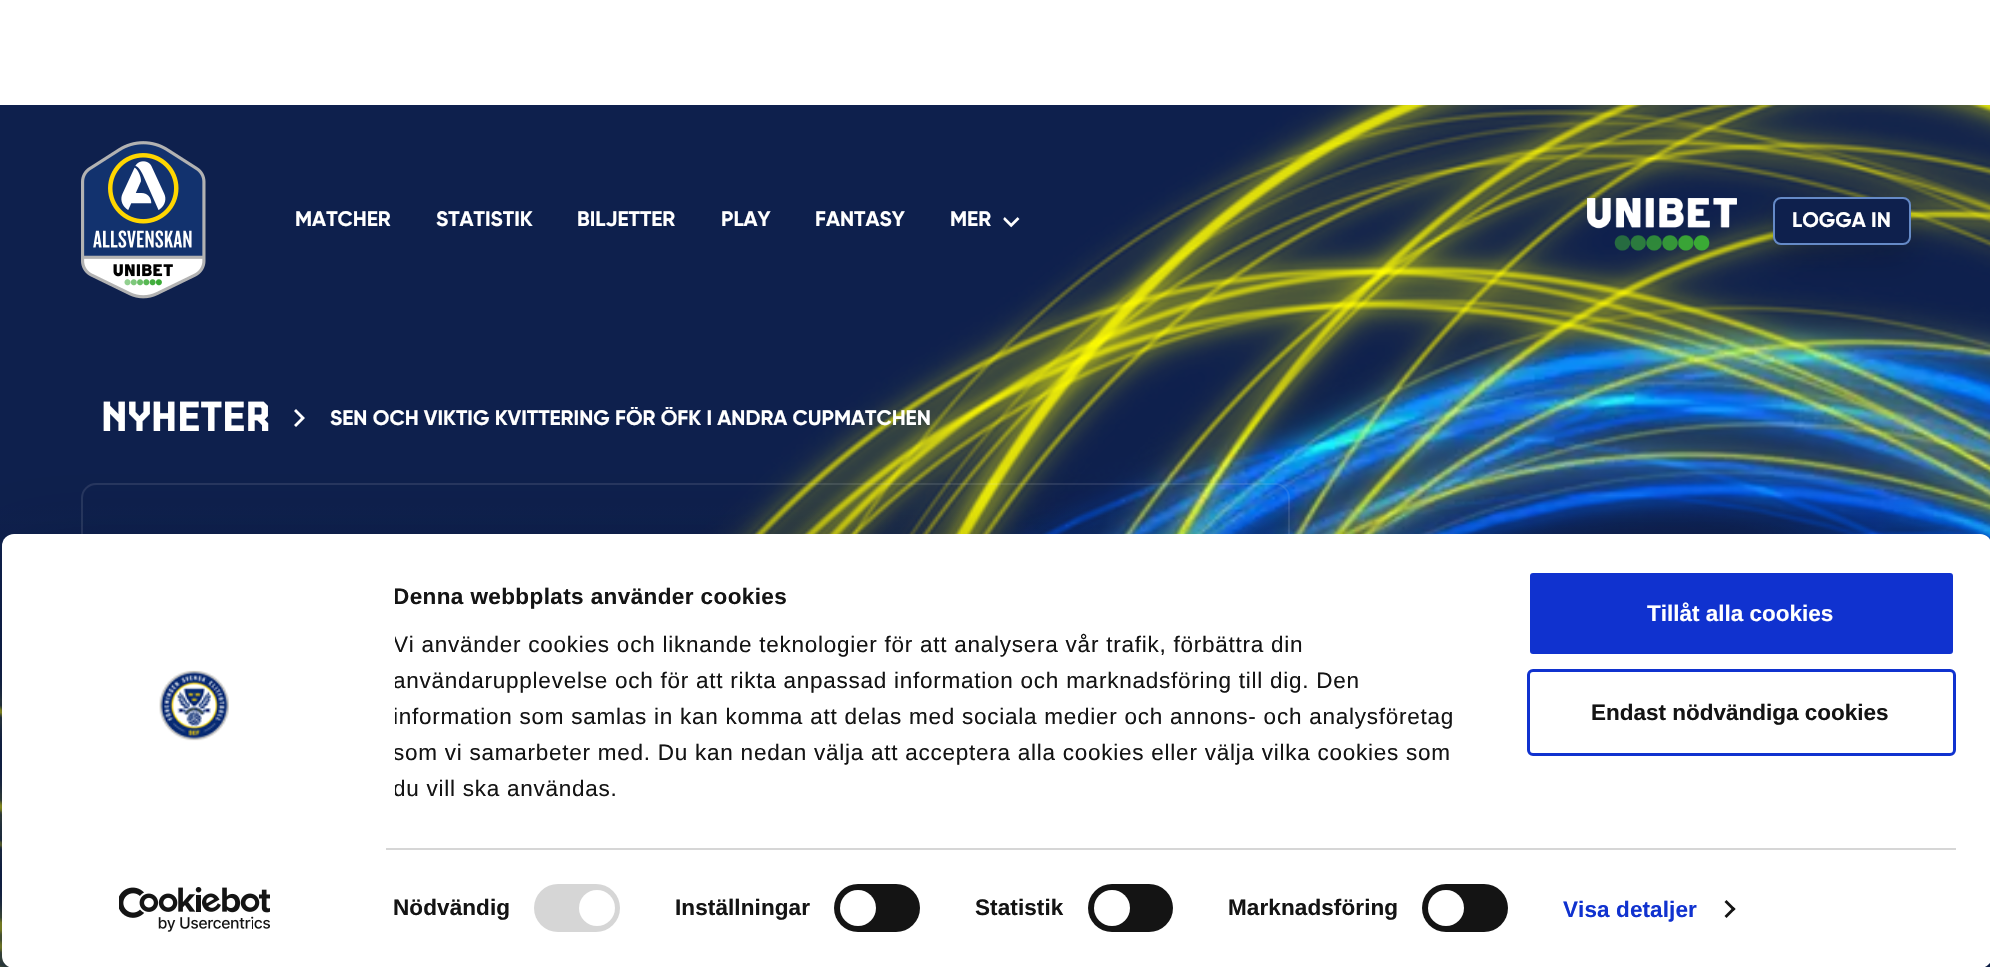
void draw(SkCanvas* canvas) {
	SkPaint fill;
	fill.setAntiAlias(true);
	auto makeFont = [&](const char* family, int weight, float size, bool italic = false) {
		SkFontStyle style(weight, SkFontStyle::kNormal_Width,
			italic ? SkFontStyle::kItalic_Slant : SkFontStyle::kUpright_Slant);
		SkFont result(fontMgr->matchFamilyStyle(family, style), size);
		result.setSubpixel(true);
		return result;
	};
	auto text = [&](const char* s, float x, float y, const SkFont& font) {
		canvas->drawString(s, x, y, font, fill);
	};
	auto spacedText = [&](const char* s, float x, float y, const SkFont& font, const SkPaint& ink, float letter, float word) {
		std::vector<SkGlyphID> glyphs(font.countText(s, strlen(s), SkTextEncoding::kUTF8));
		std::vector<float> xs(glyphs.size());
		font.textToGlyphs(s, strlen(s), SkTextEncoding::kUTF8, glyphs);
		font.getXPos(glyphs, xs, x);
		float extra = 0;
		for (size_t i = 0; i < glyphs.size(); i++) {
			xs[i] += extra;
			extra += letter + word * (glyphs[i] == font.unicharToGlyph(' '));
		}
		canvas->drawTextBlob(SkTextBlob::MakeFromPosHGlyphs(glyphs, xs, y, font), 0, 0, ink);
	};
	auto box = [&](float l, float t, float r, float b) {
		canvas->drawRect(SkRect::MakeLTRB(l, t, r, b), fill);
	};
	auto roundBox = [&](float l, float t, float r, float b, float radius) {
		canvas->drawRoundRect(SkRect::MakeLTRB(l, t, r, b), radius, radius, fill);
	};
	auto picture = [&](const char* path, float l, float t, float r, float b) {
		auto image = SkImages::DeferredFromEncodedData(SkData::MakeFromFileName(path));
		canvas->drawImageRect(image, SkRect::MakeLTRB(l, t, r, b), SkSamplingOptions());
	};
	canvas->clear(0xFF0E204D);
	picture("image0.png", 0, 105, 1990, 967);
	fill.setColor(0xFFFFFFFF);
	box(0, 0, 1990, 105);
	picture("image1.png", 81, 141, 206, 299);
	picture("image2.png", 1003, 217, 1020, 228);
	fill.setColor(0x26000000);
	fill.setMaskFilter(SkMaskFilter::MakeBlur(kNormal_SkBlurStyle, 15));
	canvas->drawRoundRect(SkRect::MakeLTRB(1773, 212, 1911, 260), 8, 8, fill);
	fill.setMaskFilter(nullptr);
	picture("image3.png", 1587, 198, 1737, 251);
	fill.setColor(0xFF0E204D);
	canvas->drawRoundRect(SkRect::MakeLTRB(1774, 198, 1910, 244), 7, 7, fill);
	fill.setStyle(SkPaint::kStroke_Style);
	fill.setStrokeWidth(2);
	fill.setColor(0xFF658AC7);
	canvas->drawRoundRect(SkRect::MakeLTRB(1774, 198, 1910, 244), 7, 7, fill);
	fill.setStyle(SkPaint::kFill_Style);
	fill.setColor(0xFFFFFFFF);
	canvas->drawPath(SkPathBuilder().moveTo(296, 427).lineTo(294, 425).lineTo(301, 418).lineTo(294, 411).lineTo(296, 409).lineTo(305, 418).close().detach(), fill);
	fill.setStyle(SkPaint::kStroke_Style);
	fill.setColor(0x1AFFFFFF);
	canvas->drawRoundRect(SkRect::MakeLTRB(82, 484, 1289, 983), 14, 14, fill);
	canvas->save();
	canvas->clipPath(SkPathBuilder(SkPathFillType::kEvenOdd).moveTo(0, 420).lineTo(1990, 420).lineTo(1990, 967).lineTo(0, 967).close().moveTo(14, 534).lineTo(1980, 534).cubicTo(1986.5f, 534, 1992, 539.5f, 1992, 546).lineTo(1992, 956).cubicTo(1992, 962.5f, 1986.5f, 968, 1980, 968).lineTo(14, 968).cubicTo(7.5f, 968, 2, 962.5f, 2, 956).lineTo(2, 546).cubicTo(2, 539.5f, 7.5f, 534, 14, 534).close().detach(), true);
	fill.setStyle(SkPaint::kFill_Style);
	fill.setColor(0x4D000000);
	fill.setMaskFilter(SkMaskFilter::MakeBlur(kNormal_SkBlurStyle, 52.5f));
	canvas->drawRoundRect(SkRect::MakeLTRB(2, 579, 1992, 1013), 12, 12, fill);
	fill.setMaskFilter(nullptr);
	canvas->restore();
	fill.setColor(0xFFFFFFFF);
	roundBox(2, 534, 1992, 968, 12);
	picture("image4.png", 159, 670, 229, 741);
	picture("image5.png", 119, 887, 270, 932);
	fill.setColor(0xFFD6D6D6);
	box(386, 848, 1956, 850);
	roundBox(534, 884, 620, 932, 24);
	fill.setColor(0xFFFFFFFF);
	canvas->drawCircle(597, 908, 18, fill);
	fill.setColor(0xFF141414);
	roundBox(834, 884, 920, 932, 24);
	fill.setColor(0xFFFFFFFF);
	canvas->drawCircle(858, 908, 18, fill);
	fill.setColor(0xFF141414);
	roundBox(1088, 884, 1173, 932, 24);
	fill.setColor(0xFFFFFFFF);
	canvas->drawCircle(1112, 908, 18, fill);
	fill.setColor(0xFF141414);
	roundBox(1422, 884, 1508, 932, 24);
	fill.setColor(0xFFFFFFFF);
	canvas->drawCircle(1446, 908, 18, fill);
	fill.setColor(0xFF141414);
	canvas->drawPath(SkPathBuilder().moveTo(1726.5f, 900).lineTo(1735.5f, 909).lineTo(1733.5f, 911).lineTo(1724.5f, 902).close().detach(), fill);
	canvas->drawPath(SkPathBuilder().moveTo(1733.5f, 907).lineTo(1735.5f, 909).lineTo(1726.5f, 918).lineTo(1724.5f, 916).close().detach(), fill);
	fill.setColor(0xFF1032CF);
	canvas->drawRoundRect(SkRect::MakeLTRB(1528.5f, 571.5f, 1954.5f, 655.5f), 4.5f, 4.5f, fill);
	fill.setStyle(SkPaint::kStroke_Style);
	fill.setStrokeWidth(3);
	fill.setColor(0xFFFFFFFF);
	canvas->drawRoundRect(SkRect::MakeLTRB(1528.5f, 571.5f, 1954.5f, 655.5f), 4.5f, 4.5f, fill);
	fill.setColor(0xFF1032CF);
	canvas->drawRoundRect(SkRect::MakeLTRB(1528.5f, 670.5f, 1954.5f, 754.5f), 4.5f, 4.5f, fill);
	auto font1 = makeFont("Gilroy", 400, 21);
	fill.setStyle(SkPaint::kFill_Style);
	fill.setColor(0xFFFFFFFF);
	text("MATCHER", 295, 226, font1);
	text("STATISTIK", 436, 226, font1);
	text("BILJETTER", 577, 226, font1);
	text("PLAY", 721, 226, font1);
	text("FANTASY", 815, 226, font1);
	text("MER", 950, 226, font1);
	text("LOGGA IN", 1792, 227, font1);
	auto font2 = makeFont("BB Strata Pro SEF", 700, 39);
	text("NYHETER", 101, 431, font2);
	canvas->save();
	canvas->clipRect(SkRect::MakeLTRB(330, 407, 932, 434));
	text("SEN OCH VIKTIG KVITTERING FÖR ÖFK I ANDRA CUPMATCHEN", 330, 425, font1);
	canvas->restore();
	canvas->save();
	canvas->clipRect(SkRect::MakeLTRB(395, 579, 1484, 806));
	auto font3 = makeFont("Liberation Sans", 700, 22.5f);
	fill.setColor(0xFF141414);
	spacedText("Denna webbplats använder cookies", 393, 604, font3, fill, 0.4f, 0);
	auto font4 = makeFont("Liberation Sans", 400, 22.5f);
	spacedText("Vi använder cookies och liknande teknologier för att analysera vår trafik, förbättra din", 393, 652, font4, fill, 0.75f, 0);
	spacedText("användarupplevelse och för att rikta anpassad information och marknadsföring till dig. Den", 393, 688, font4, fill, 0.75f, 0);
	spacedText("information som samlas in kan komma att delas med sociala medier och annons- och analysföretag", 393, 724, font4, fill, 0.75f, 0);
	spacedText("som vi samarbeter med. Du kan nedan välja att acceptera alla cookies eller välja vilka cookies som", 393, 760, font4, fill, 0.75f, 0);
	spacedText("du vill ska användas.", 393, 796, font4, fill, 0.75f, 0);
	canvas->restore();
	spacedText("Nödvändig", 393, 915, font3, fill, 0.1f, 0);
	spacedText("Inställningar", 675, 915, font3, fill, 0.1f, 0);
	spacedText("Statistik", 975, 915, font3, fill, 0.1f, 0);
	spacedText("Marknadsföring", 1228, 915, font3, fill, 0.1f, 0);
	fill.setColor(0xFF1032CF);
	spacedText("Visa detaljer", 1563, 917, font3, fill, 0.1f, 0);
	fill.setColor(0xFFFFFFFF);
	text("Tillåt alla cookies", 1647, 621, font3);
	fill.setColor(0xFF141414);
	text("Endast nödvändiga cookies", 1591, 720, font3);
}
